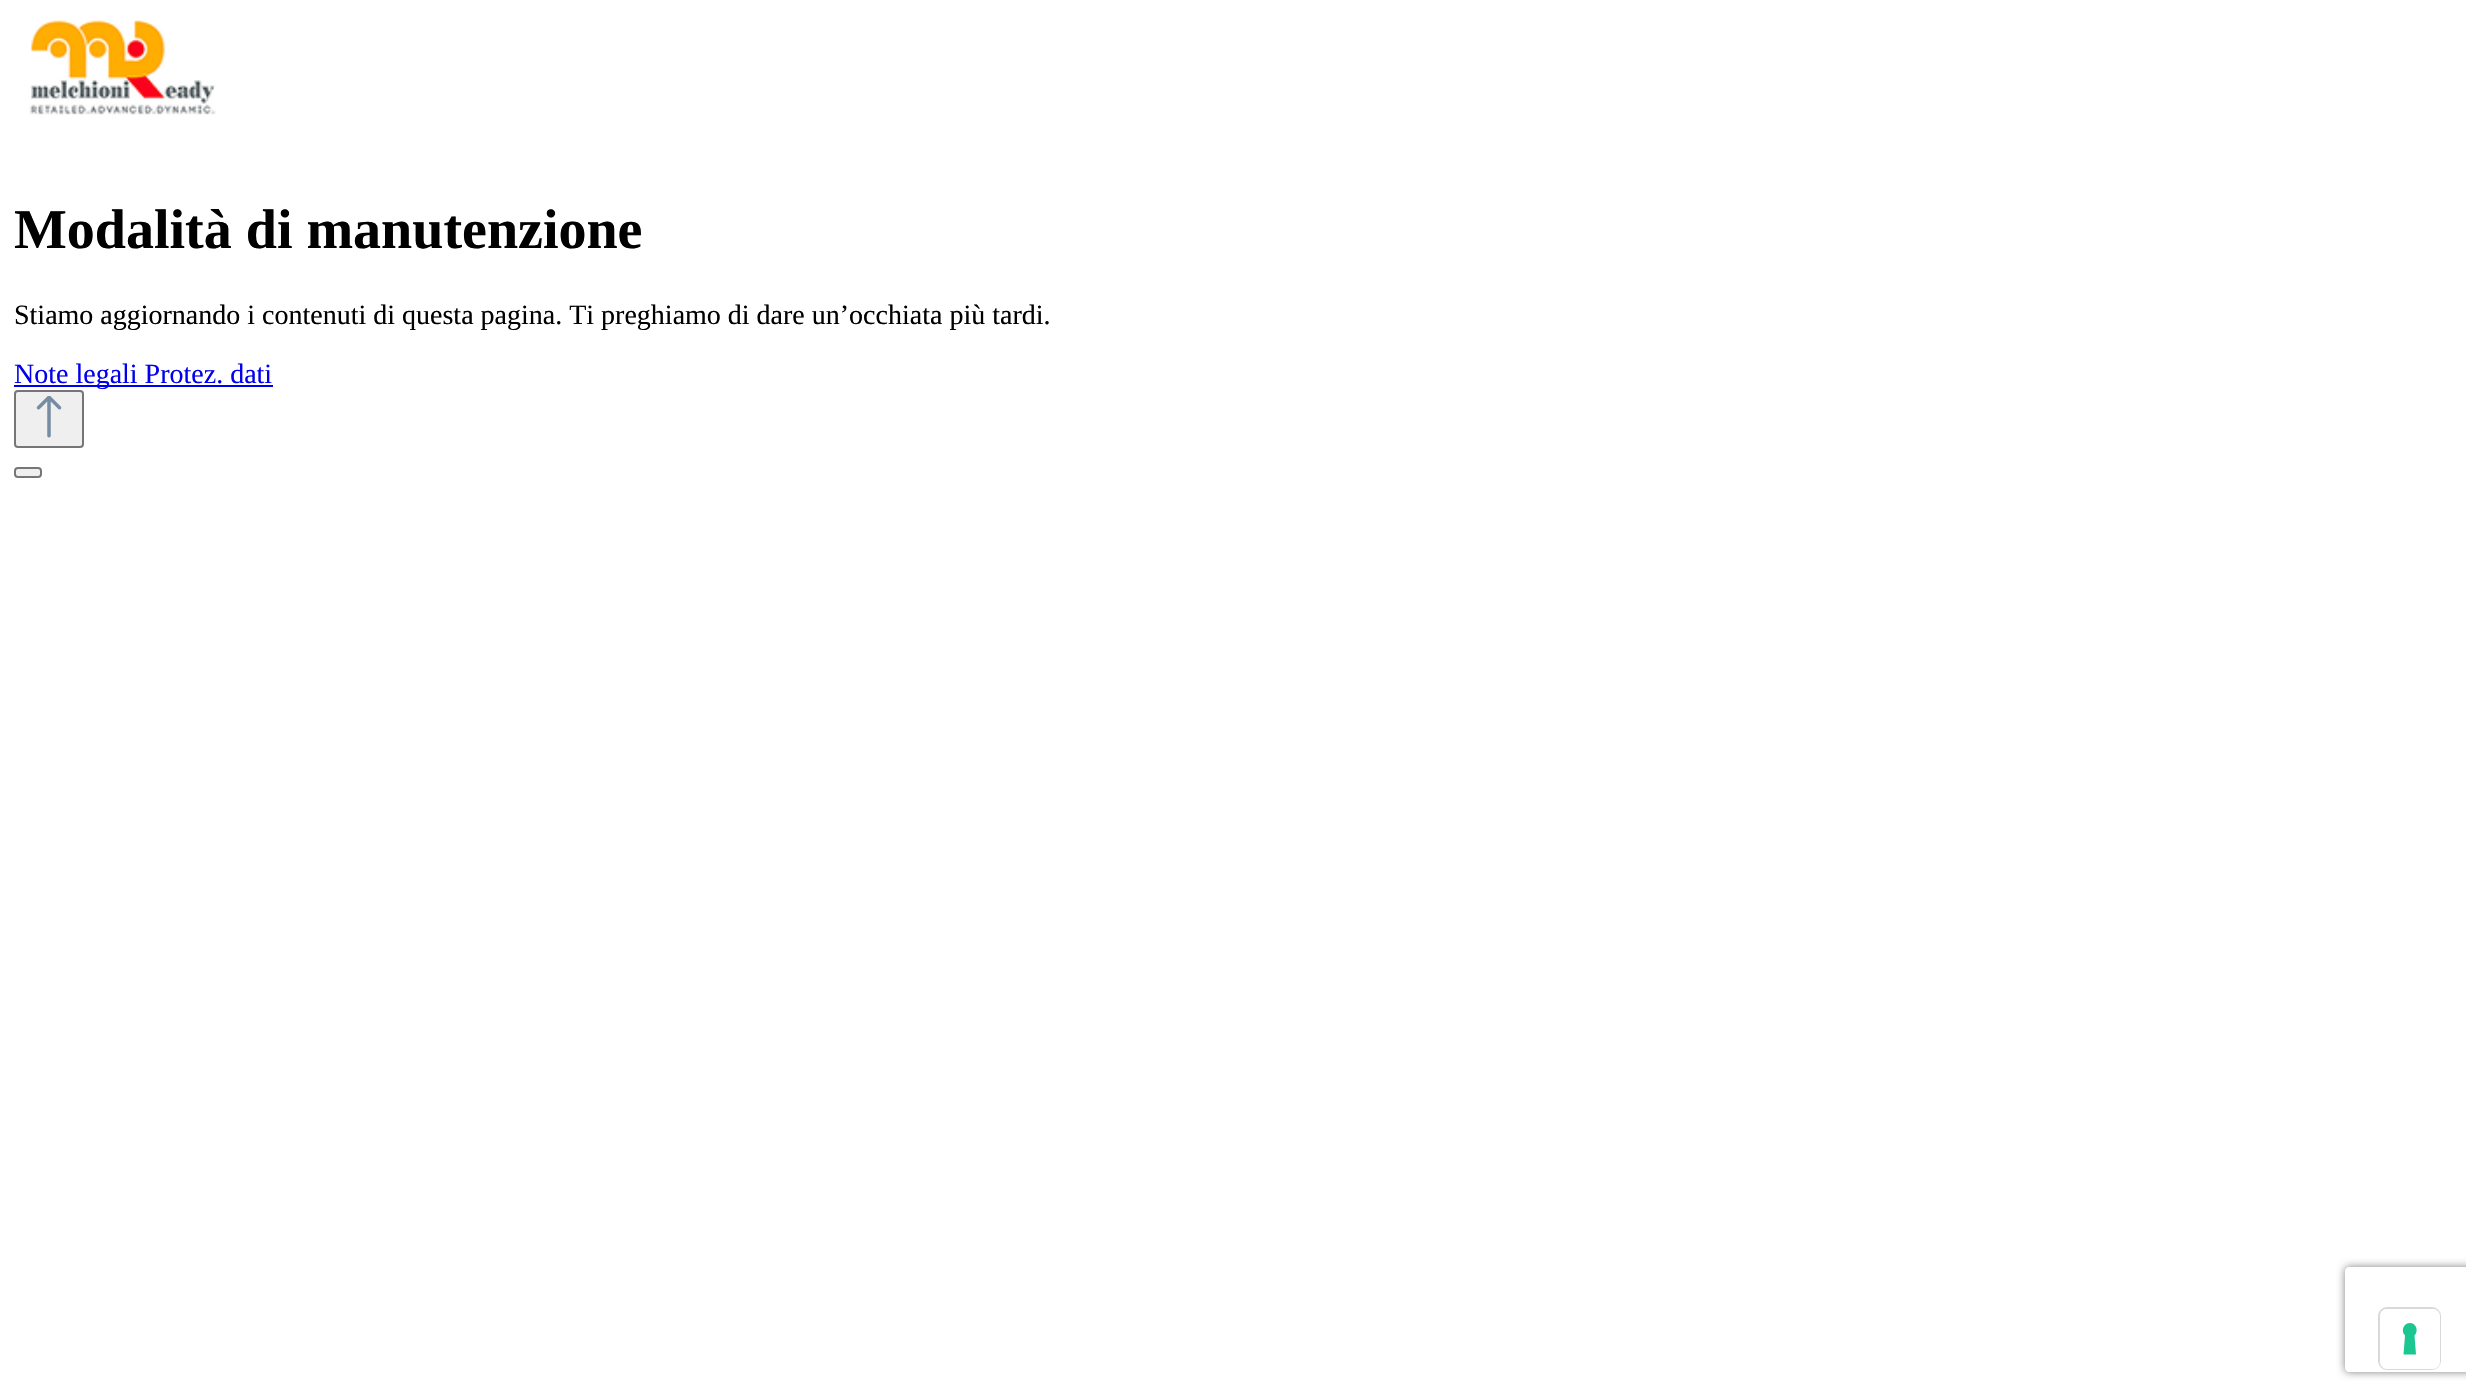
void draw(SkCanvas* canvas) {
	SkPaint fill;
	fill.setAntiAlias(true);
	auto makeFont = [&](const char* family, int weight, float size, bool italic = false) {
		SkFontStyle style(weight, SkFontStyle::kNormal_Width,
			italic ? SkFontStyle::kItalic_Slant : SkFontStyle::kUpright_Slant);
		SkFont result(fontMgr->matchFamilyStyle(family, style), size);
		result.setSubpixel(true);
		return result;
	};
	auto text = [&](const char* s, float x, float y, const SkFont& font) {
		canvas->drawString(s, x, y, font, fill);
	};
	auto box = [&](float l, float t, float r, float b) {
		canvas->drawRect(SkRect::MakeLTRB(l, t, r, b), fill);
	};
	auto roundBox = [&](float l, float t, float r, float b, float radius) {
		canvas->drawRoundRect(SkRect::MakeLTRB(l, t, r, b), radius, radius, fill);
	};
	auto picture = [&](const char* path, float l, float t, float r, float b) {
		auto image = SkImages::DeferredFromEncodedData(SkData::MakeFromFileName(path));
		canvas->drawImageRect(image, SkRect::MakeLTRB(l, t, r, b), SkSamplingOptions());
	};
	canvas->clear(0xFFFFFFFF);
	picture("image0.png", 29, 20, 216, 115);
	fill.setColor(0xFF0000EE);
	box(14, 385, 273, 387);
	fill.setColor(0xFFEFEFEF);
	canvas->drawRoundRect(SkRect::MakeLTRB(15, 391, 83, 447), 3, 3, fill);
	fill.setStyle(SkPaint::kStroke_Style);
	fill.setStrokeWidth(2);
	fill.setColor(0xFF767676);
	canvas->drawRoundRect(SkRect::MakeLTRB(15, 391, 83, 447), 3, 3, fill);
	picture("image1.png", 36, 396, 62, 438);
	fill.setStyle(SkPaint::kFill_Style);
	fill.setColor(0xFFEFEFEF);
	canvas->drawRoundRect(SkRect::MakeLTRB(15, 468, 41, 477), 3, 3, fill);
	fill.setStyle(SkPaint::kStroke_Style);
	fill.setColor(0xFF767676);
	canvas->drawRoundRect(SkRect::MakeLTRB(15, 468, 41, 477), 3, 3, fill);
	canvas->save();
	canvas->clipPath(SkPathBuilder(SkPathFillType::kEvenOdd).moveTo(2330, 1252).lineTo(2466, 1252).lineTo(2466, 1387).lineTo(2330, 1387).close().moveTo(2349, 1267).lineTo(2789, 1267).cubicTo(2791, 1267, 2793, 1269, 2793, 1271).lineTo(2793, 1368).cubicTo(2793, 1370, 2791, 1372, 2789, 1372).lineTo(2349, 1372).cubicTo(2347, 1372, 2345, 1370, 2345, 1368).lineTo(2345, 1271).cubicTo(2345, 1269, 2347, 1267, 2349, 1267).close().detach(), true);
	fill.setStyle(SkPaint::kFill_Style);
	fill.setColor(0xFF808080);
	fill.setMaskFilter(SkMaskFilter::MakeBlur(kNormal_SkBlurStyle, 4.5f));
	canvas->drawRoundRect(SkRect::MakeLTRB(2345, 1267, 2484, 1372), 4, 4, fill);
	fill.setMaskFilter(nullptr);
	canvas->restore();
	fill.setStyle(SkPaint::kStroke_Style);
	fill.setColor(0xFFD9D9D9);
	canvas->drawRoundRect(SkRect::MakeLTRB(2379, 1308, 2440, 1369), 8, 8, fill);
	fill.setStyle(SkPaint::kFill_Style);
	fill.setColor(0xFFFFFFFF);
	roundBox(2380, 1309, 2440, 1369, 7);
	fill.setColor(0xFF1CC691);
	canvas->drawPath(SkPathBuilder(SkPathFillType::kEvenOdd).moveTo(2410, 1323).cubicTo(2416, 1323, 2419, 1331, 2414.5f, 1335.5f).lineTo(2416, 1354.5f).lineTo(2403.5f, 1354.5f).lineTo(2405, 1335.5f).cubicTo(2400.5f, 1331, 2403.5f, 1323, 2410, 1323).close().detach(), fill);
	auto font1 = makeFont("Liberation Serif", 700, 56);
	fill.setColor(0xFF000000);
	text("Modalità di manutenzione", 14, 248, font1);
	auto font2 = makeFont("Liberation Serif", 400, 28);
	text("Stiamo aggiornando i contenuti di questa pagina. Ti preghiamo di dare un’occhiata più tardi.", 14, 324, font2);
	fill.setColor(0xFF0000EE);
	text("Note legali Protez. dati", 14, 383, font2);
}
